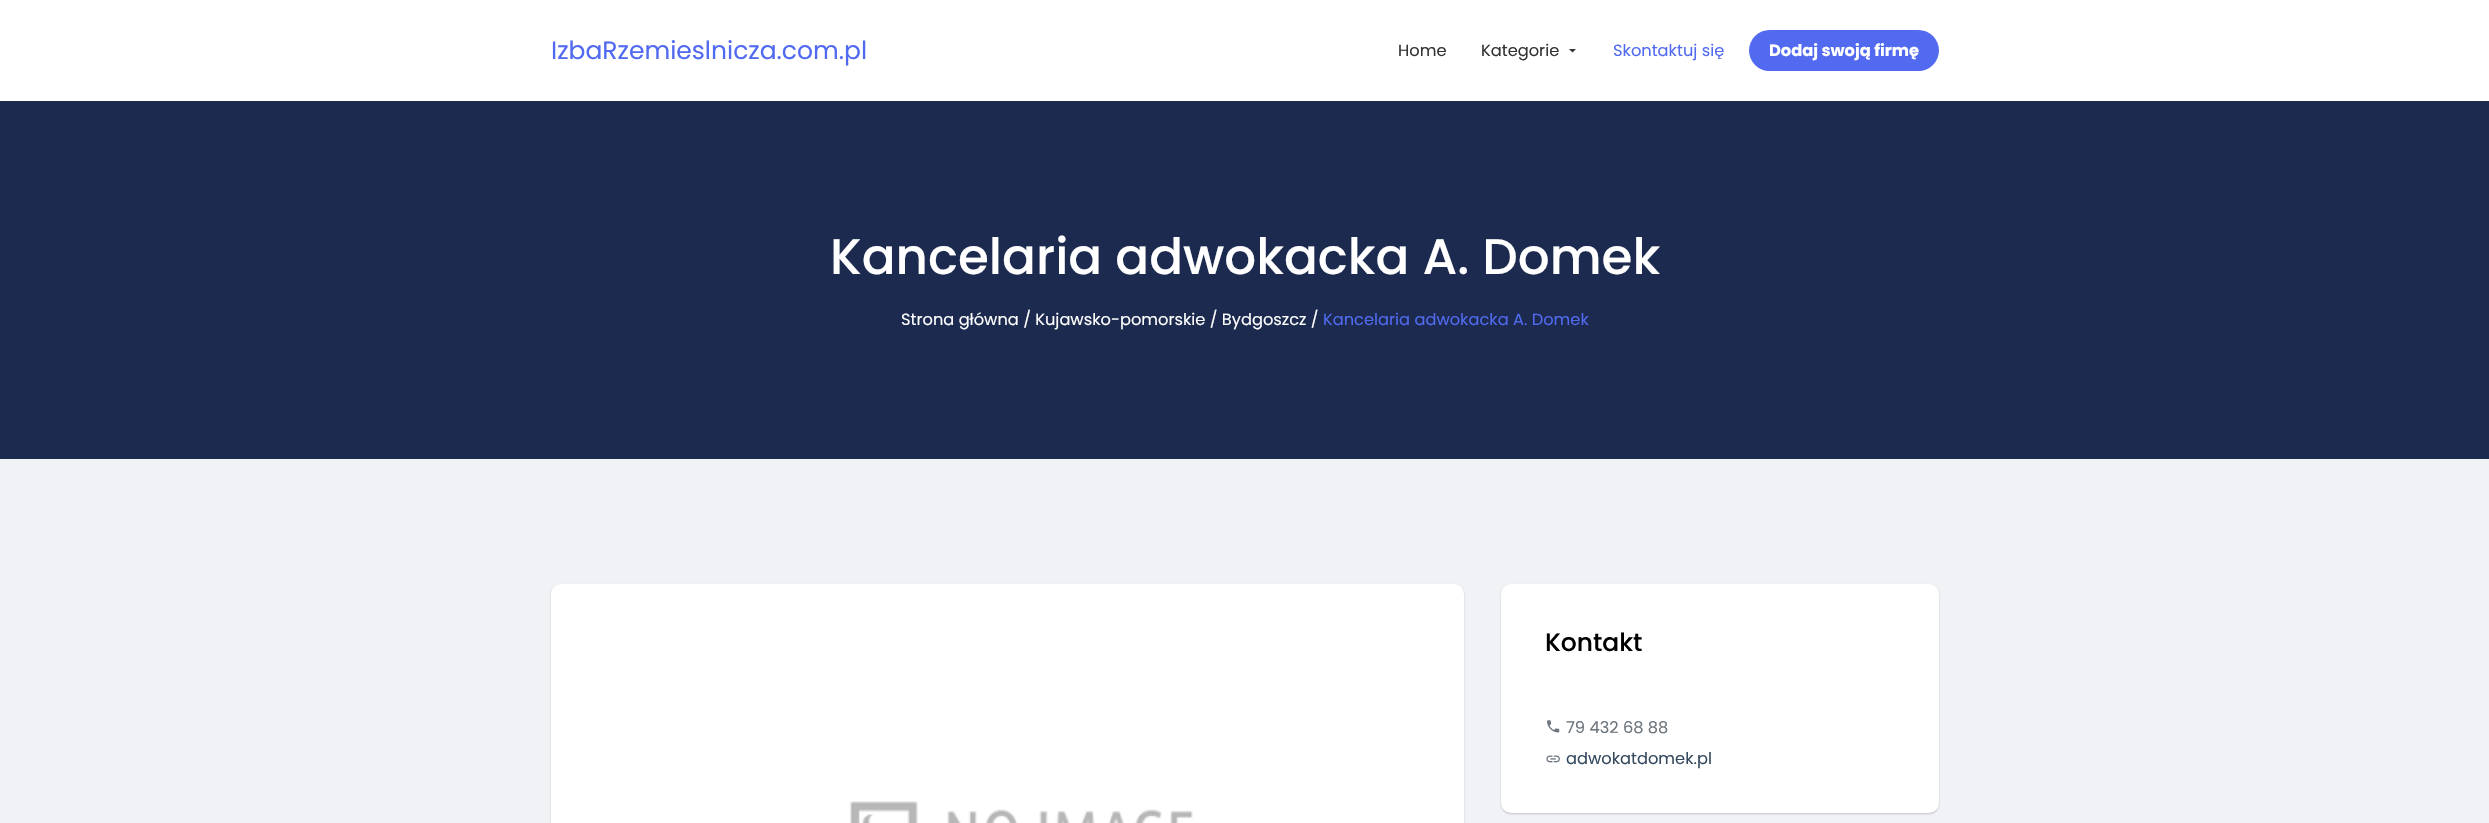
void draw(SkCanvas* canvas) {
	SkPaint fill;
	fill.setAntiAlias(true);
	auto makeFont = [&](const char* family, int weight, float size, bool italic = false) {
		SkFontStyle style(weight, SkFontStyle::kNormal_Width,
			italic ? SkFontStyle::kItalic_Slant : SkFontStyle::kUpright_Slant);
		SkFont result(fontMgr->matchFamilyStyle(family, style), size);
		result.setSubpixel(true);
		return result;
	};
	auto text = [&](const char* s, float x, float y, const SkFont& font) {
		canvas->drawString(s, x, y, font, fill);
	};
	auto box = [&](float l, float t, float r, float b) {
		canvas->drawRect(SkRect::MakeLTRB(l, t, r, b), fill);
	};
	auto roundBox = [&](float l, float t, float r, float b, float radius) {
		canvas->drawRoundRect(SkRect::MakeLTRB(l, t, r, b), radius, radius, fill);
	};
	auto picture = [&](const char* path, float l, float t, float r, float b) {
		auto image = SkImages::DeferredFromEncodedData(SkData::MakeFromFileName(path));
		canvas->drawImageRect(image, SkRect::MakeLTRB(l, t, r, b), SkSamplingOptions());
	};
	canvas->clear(0xFFF0F2F5);
	fill.setColor(0xFFFFFFFF);
	box(0, 0, 2489, 101);
	fill.setColor(0xFF333333);
	canvas->drawPath(SkPathBuilder().moveTo(1569, 49).lineTo(1576, 49).lineTo(1572.5f, 52.5f).close().detach(), fill);
	fill.setColor(0xFF516AF0);
	roundBox(1749, 30, 1939, 71, 20.5f);
	fill.setColor(0xFF1B2A4E);
	box(0, 101, 2489, 459);
	fill.setColor(0x33000000);
	fill.setMaskFilter(SkMaskFilter::MakeBlur(kNormal_SkBlurStyle, 1));
	canvas->drawRoundRect(SkRect::MakeLTRB(551, 585, 1464, 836), 10, 10, fill);
	fill.setMaskFilter(nullptr);
	fill.setColor(0xFFFFFFFF);
	roundBox(551, 584, 1464, 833, 10);
	picture("image0.png", 849, 801, 1193, 823);
	fill.setColor(0x33000000);
	fill.setMaskFilter(SkMaskFilter::MakeBlur(kNormal_SkBlurStyle, 1));
	canvas->drawRoundRect(SkRect::MakeLTRB(1501, 585, 1939, 814), 10, 10, fill);
	fill.setMaskFilter(nullptr);
	fill.setColor(0xFFFFFFFF);
	roundBox(1501, 584, 1939, 813, 10);
	picture("image1.png", 1547, 720, 1560, 733);
	picture("image2.png", 1546, 755, 1560, 763);
	auto font1 = makeFont("Poppins", 400, 25);
	fill.setColor(0xFF516AF0);
	text("IzbaRzemieslnicza.com.pl", 551, 59, font1);
	auto font2 = makeFont("Poppins", 400, 16.25f);
	fill.setColor(0xFF333333);
	text("Home", 1398, 56, font2);
	text("Kategorie", 1481, 56, font2);
	fill.setColor(0xFF516AF0);
	text("Skontaktuj się", 1613, 56, font2);
	auto font3 = makeFont("Poppins", 700, 16.25f);
	fill.setColor(0xFFFFFFFF);
	text("Dodaj swoją firmę", 1769, 56, font3);
	auto font4 = makeFont("Poppins", 500, 50);
	text("Kancelaria adwokacka A. Domek", 830, 274, font4);
	text("Strona główna / Kujawsko-pomorskie / Bydgoszcz /", 901, 325, font2);
	fill.setColor(0xFF516AF0);
	text("Kancelaria adwokacka A. Domek", 1323, 325, font2);
	auto font5 = makeFont("Poppins", 500, 25);
	fill.setColor(0xFF000000);
	text("Kontakt", 1545, 651, font5);
	fill.setColor(0xFF6C757D);
	text("79 432 68 88", 1566, 733, font2);
	fill.setColor(0xFF34495E);
	text("adwokatdomek.pl", 1566, 764, font2);
}
